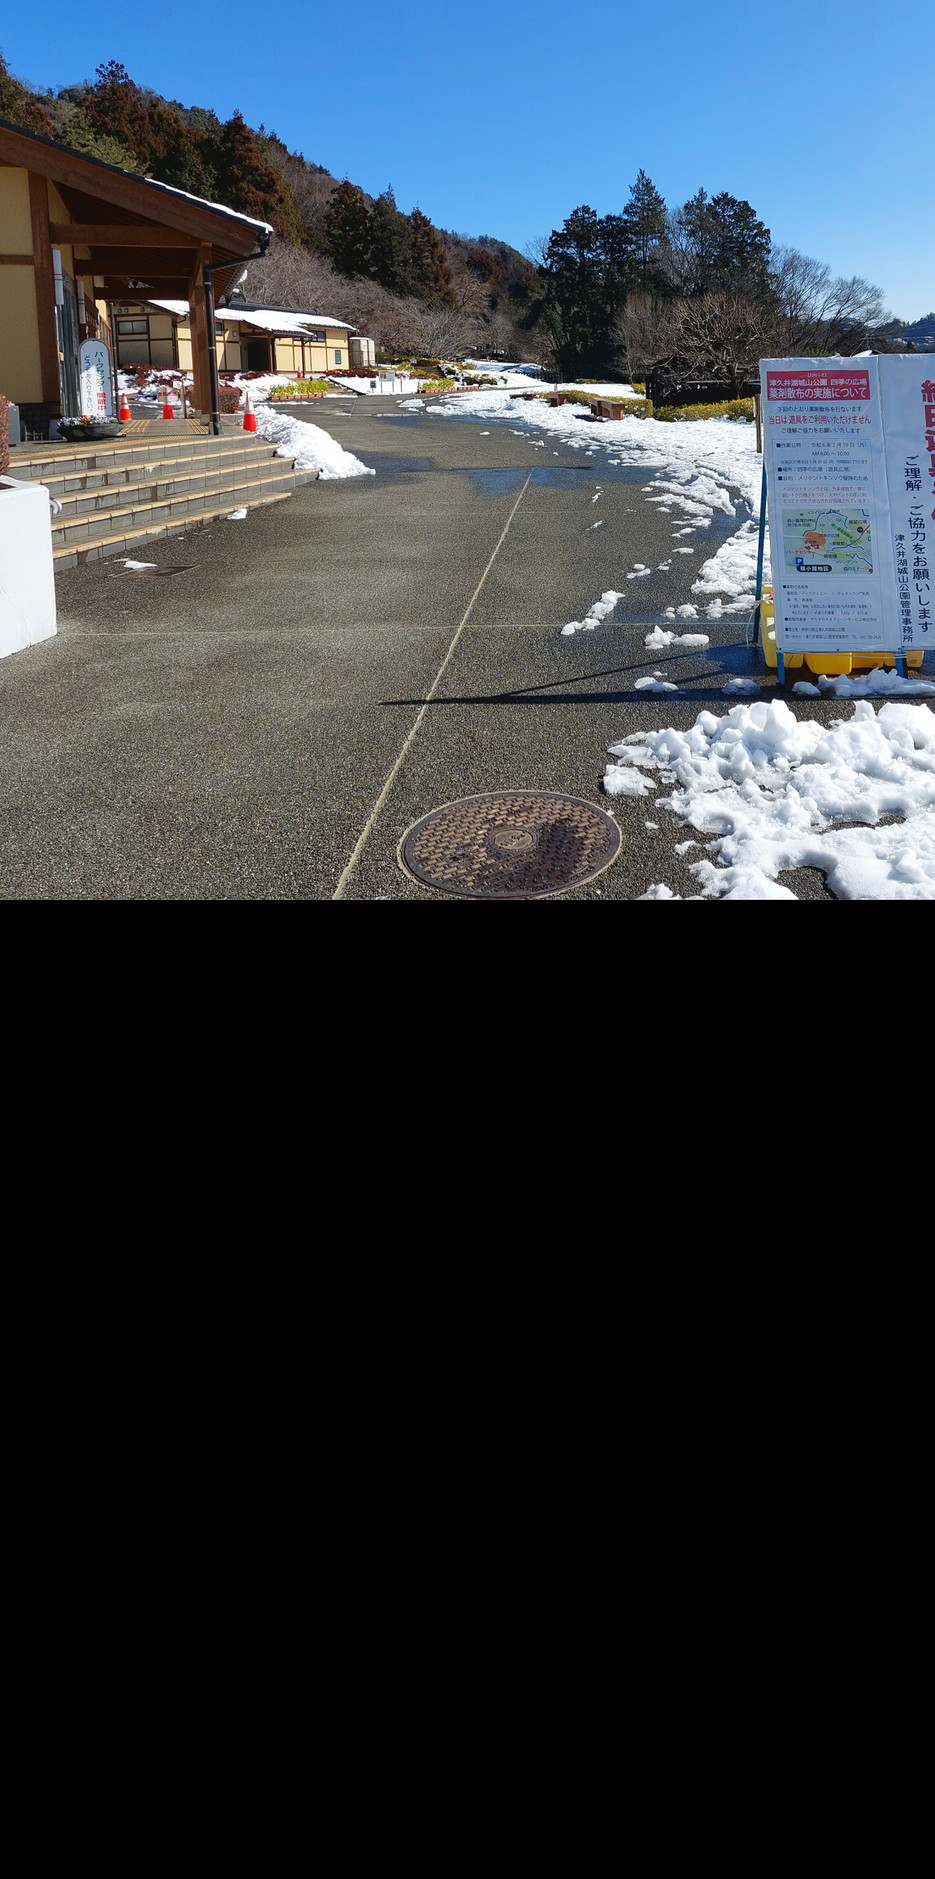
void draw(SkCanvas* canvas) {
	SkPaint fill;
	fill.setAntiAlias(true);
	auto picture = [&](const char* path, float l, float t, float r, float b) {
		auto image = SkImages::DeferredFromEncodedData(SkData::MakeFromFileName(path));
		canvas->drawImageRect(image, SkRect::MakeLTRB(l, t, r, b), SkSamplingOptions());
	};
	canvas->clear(0xFF000000);
	picture("image0.png", 0, 0, 935, 900);
}
